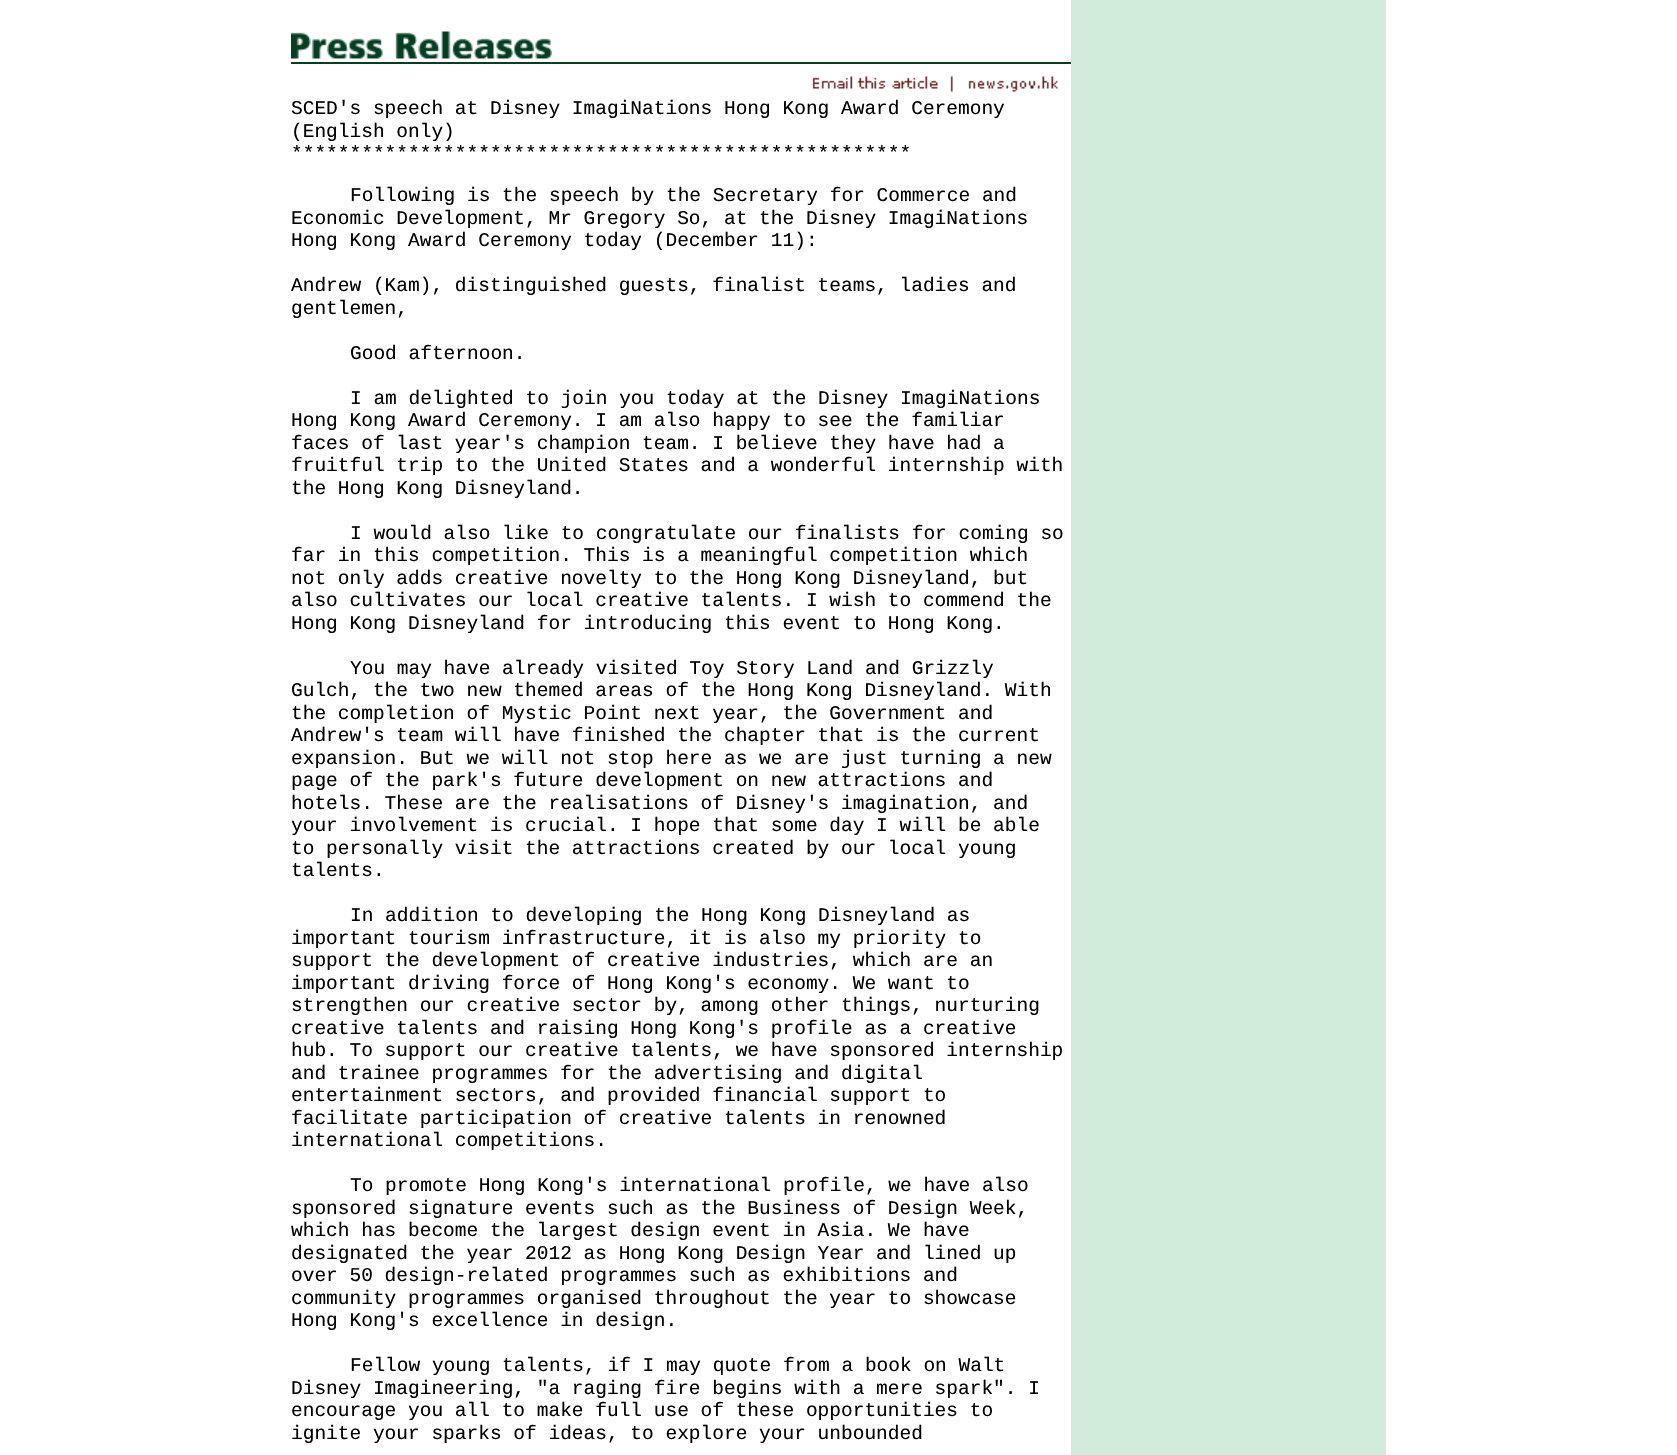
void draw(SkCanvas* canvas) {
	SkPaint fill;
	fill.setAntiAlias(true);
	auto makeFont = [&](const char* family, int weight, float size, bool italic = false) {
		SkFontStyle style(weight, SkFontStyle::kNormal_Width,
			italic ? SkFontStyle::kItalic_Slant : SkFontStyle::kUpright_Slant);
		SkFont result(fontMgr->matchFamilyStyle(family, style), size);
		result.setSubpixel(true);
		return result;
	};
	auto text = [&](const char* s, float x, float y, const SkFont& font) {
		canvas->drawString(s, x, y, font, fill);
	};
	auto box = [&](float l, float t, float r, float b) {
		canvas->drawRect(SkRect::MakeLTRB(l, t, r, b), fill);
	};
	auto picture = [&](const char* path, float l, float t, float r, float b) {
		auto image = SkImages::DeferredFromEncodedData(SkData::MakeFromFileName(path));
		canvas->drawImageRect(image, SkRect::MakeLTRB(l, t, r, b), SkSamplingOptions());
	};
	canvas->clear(0xFFFFFFFF);
	fill.setColor(0xFFD1ECDA);
	box(1071, 0, 1386, 1455);
	fill.setColor(0xFF053E21);
	box(291, 62, 1071, 64);
	picture("image0.png", 291, 31, 552, 59);
	picture("image1.png", 812, 76, 953, 92);
	picture("image2.png", 968, 76, 1058, 92);
	auto font1 = makeFont("Liberation Mono", 400, 19.5f);
	fill.setColor(0xFF000000);
	text("SCED's speech at Disney ImagiNations Hong Kong Award Ceremony", 291, 114, font1);
	text("(English only)", 291, 137, font1);
	text("*****************************************************", 291, 159, font1);
	text("Following is the speech by the Secretary for Commerce and", 350, 201, font1);
	text("Economic Development, Mr Gregory So, at the Disney ImagiNations", 291, 224, font1);
	text("Hong Kong Award Ceremony today (December 11):", 291, 246, font1);
	text("Andrew (Kam), distinguished guests, finalist teams, ladies and", 291, 291, font1);
	text("gentlemen,", 291, 314, font1);
	text("Good afternoon.", 350, 359, font1);
	text("I am delighted to join you today at the Disney ImagiNations", 350, 404, font1);
	text("Hong Kong Award Ceremony. I am also happy to see the familiar", 291, 426, font1);
	text("faces of last year's champion team. I believe they have had a", 291, 449, font1);
	text("fruitful trip to the United States and a wonderful internship with", 291, 471, font1);
	text("the Hong Kong Disneyland.", 291, 494, font1);
	text("I would also like to congratulate our finalists for coming so", 350, 539, font1);
	text("far in this competition. This is a meaningful competition which", 291, 561, font1);
	text("not only adds creative novelty to the Hong Kong Disneyland, but", 291, 584, font1);
	text("also cultivates our local creative talents. I wish to commend the", 291, 606, font1);
	text("Hong Kong Disneyland for introducing this event to Hong Kong.", 291, 629, font1);
	text("You may have already visited Toy Story Land and Grizzly", 350, 674, font1);
	text("Gulch, the two new themed areas of the Hong Kong Disneyland. With", 291, 696, font1);
	text("the completion of Mystic Point next year, the Government and", 291, 719, font1);
	text("Andrew's team will have finished the chapter that is the current", 291, 741, font1);
	text("expansion. But we will not stop here as we are just turning a new", 291, 764, font1);
	text("page of the park's future development on new attractions and", 291, 786, font1);
	text("hotels. These are the realisations of Disney's imagination, and", 291, 809, font1);
	text("your involvement is crucial. I hope that some day I will be able", 291, 831, font1);
	text("to personally visit the attractions created by our local young", 291, 854, font1);
	text("talents.", 291, 876, font1);
	text("In addition to developing the Hong Kong Disneyland as", 350, 921, font1);
	text("important tourism infrastructure, it is also my priority to", 291, 944, font1);
	text("support the development of creative industries, which are an", 291, 966, font1);
	text("important driving force of Hong Kong's economy. We want to", 291, 989, font1);
	text("strengthen our creative sector by, among other things, nurturing", 291, 1011, font1);
	text("creative talents and raising Hong Kong's profile as a creative", 291, 1034, font1);
	text("hub. To support our creative talents, we have sponsored internship", 291, 1056, font1);
	text("and trainee programmes for the advertising and digital", 291, 1079, font1);
	text("entertainment sectors, and provided financial support to", 291, 1101, font1);
	text("facilitate participation of creative talents in renowned", 291, 1124, font1);
	text("international competitions.", 291, 1146, font1);
	text("To promote Hong Kong's international profile, we have also", 350, 1191, font1);
	text("sponsored signature events such as the Business of Design Week,", 291, 1214, font1);
	text("which has become the largest design event in Asia. We have", 291, 1236, font1);
	text("designated the year 2012 as Hong Kong Design Year and lined up", 291, 1259, font1);
	text("over 50 design-related programmes such as exhibitions and", 291, 1281, font1);
	text("community programmes organised throughout the year to showcase", 291, 1304, font1);
	text("Hong Kong's excellence in design.", 291, 1326, font1);
	text("Fellow young talents, if I may quote from a book on Walt", 350, 1371, font1);
	text("Disney Imagineering, \"a raging fire begins with a mere spark\". I", 291, 1394, font1);
	text("encourage you all to make full use of these opportunities to", 291, 1416, font1);
	text("ignite your sparks of ideas, to explore your unbounded", 291, 1439, font1);
}
